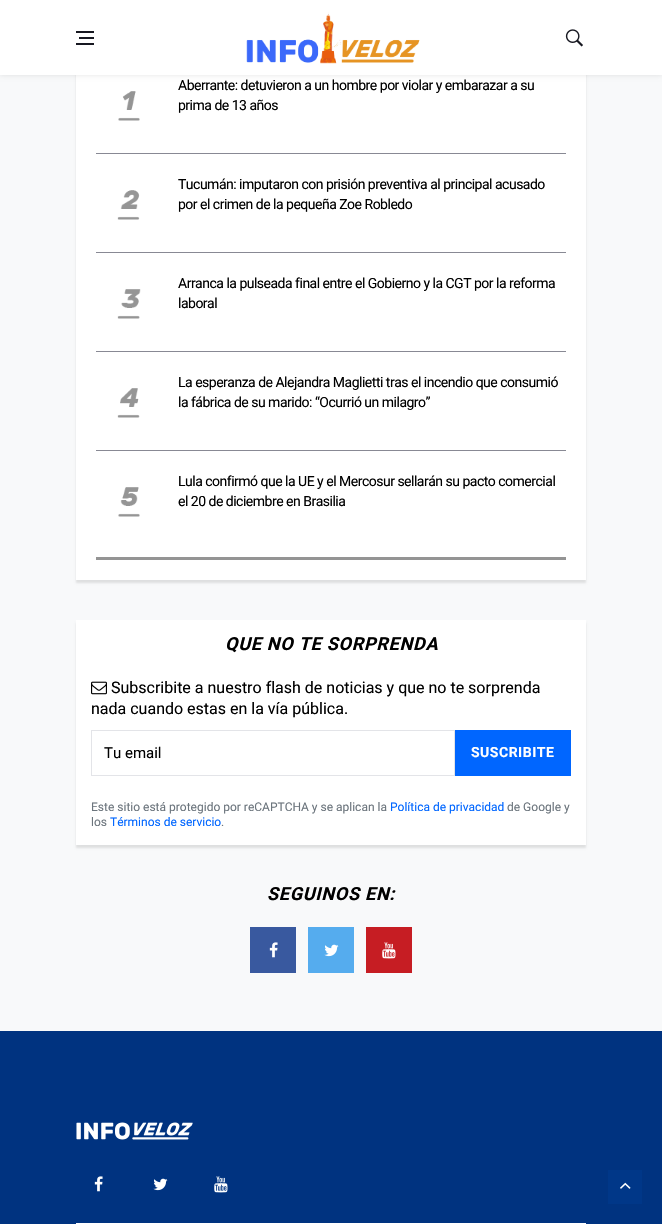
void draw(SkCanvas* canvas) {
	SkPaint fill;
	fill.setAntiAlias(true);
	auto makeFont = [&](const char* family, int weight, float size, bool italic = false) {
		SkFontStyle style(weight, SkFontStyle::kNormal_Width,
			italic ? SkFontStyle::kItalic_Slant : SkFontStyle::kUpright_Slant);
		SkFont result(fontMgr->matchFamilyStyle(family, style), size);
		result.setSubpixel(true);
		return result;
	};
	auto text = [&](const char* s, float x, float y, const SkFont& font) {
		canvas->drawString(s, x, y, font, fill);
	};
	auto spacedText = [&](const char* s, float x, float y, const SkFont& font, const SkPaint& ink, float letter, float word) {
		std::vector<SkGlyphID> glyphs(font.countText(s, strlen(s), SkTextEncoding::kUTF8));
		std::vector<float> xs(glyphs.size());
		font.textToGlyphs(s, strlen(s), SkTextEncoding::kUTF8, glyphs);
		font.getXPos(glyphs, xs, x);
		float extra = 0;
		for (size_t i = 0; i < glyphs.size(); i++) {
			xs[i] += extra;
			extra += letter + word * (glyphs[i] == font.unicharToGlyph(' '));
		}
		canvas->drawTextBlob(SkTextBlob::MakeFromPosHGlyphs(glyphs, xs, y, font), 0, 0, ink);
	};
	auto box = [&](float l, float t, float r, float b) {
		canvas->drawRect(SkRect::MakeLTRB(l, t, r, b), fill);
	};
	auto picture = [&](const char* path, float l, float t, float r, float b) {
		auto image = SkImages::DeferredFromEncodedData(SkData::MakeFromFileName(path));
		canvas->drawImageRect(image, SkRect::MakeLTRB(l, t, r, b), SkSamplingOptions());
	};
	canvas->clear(0xFFF8F9FA);
	fill.setColor(0x1A000000);
	fill.setMaskFilter(SkMaskFilter::MakeBlur(kNormal_SkBlurStyle, 1));
	canvas->drawRect(SkRect::MakeLTRB(76, -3, 586, 583), fill);
	fill.setMaskFilter(nullptr);
	fill.setColor(0xFFFFFFFF);
	box(76, 75, 586, 580);
	fill.setColor(0x1A000000);
	fill.setMaskFilter(SkMaskFilter::MakeBlur(kNormal_SkBlurStyle, 2.5f));
	canvas->drawRect(SkRect::MakeLTRB(0, 0, 662, 75), fill);
	fill.setMaskFilter(nullptr);
	fill.setColor(0xFFFFFFFF);
	box(0, 0, 662, 75);
	fill.setColor(0xFF171821);
	box(79, 37, 94, 39);
	box(76, 31, 94, 33);
	box(76, 43, 94, 45);
	picture("image0.png", 246, 12, 420, 64);
	picture("image1.png", 565, 29, 583, 47);
	fill.setColor(0xFF949494);
	box(96, 557, 566, 560);
	fill.setColor(0xFF888994);
	box(96, 153, 566, 154);
	picture("image2.png", 118, 91, 140, 121);
	box(96, 252, 566, 253);
	picture("image3.png", 117, 190, 140, 220);
	box(96, 351, 566, 352);
	picture("image4.png", 117, 289, 141, 319);
	box(96, 450, 566, 451);
	picture("image5.png", 117, 388, 140, 418);
	picture("image6.png", 118, 487, 140, 517);
	fill.setColor(0x1A000000);
	fill.setMaskFilter(SkMaskFilter::MakeBlur(kNormal_SkBlurStyle, 1));
	canvas->drawRect(SkRect::MakeLTRB(76, 623, 586, 848), fill);
	fill.setMaskFilter(nullptr);
	fill.setColor(0xFFFFFFFF);
	box(76, 620, 586, 845);
	picture("image7.png", 91, 681, 107, 695);
	fill.setStyle(SkPaint::kStroke_Style);
	fill.setStrokeWidth(1);
	fill.setColor(0xFFE3E4E8);
	canvas->drawRect(SkRect::MakeLTRB(91.5f, 730.5f, 454.5f, 775.5f), fill);
	fill.setStyle(SkPaint::kFill_Style);
	fill.setColor(0xFF0066FF);
	box(455, 730, 571, 776);
	fill.setColor(0xFF39599F);
	box(250, 927, 296, 973);
	picture("image8.png", 269, 942, 278, 958);
	fill.setColor(0xFF55ACEE);
	box(308, 927, 354, 973);
	picture("image9.png", 324, 944, 339, 957);
	fill.setColor(0xFFC61D23);
	box(366, 927, 412, 973);
	picture("image10.png", 382, 942, 396, 959);
	fill.setColor(0xFF003380);
	box(0, 1031, 662, 1224);
	fill.setColor(0xFFFFFFFF);
	box(76, 1223, 586, 1224);
	picture("image11.png", 76, 1122, 193, 1140);
	picture("image12.png", 94, 1176, 103, 1192);
	picture("image13.png", 153, 1178, 168, 1191);
	picture("image14.png", 214, 1176, 228, 1193);
	fill.setColor(0xFF003788);
	box(608, 1170, 642, 1204);
	picture("image15.png", 620, 1182, 631, 1189);
	auto font1 = makeFont("Roboto", 400, 14);
	fill.setColor(0xFF000000);
	spacedText("Aberrante: detuvieron a un hombre por violar y embarazar a su", 178, 90, font1, fill, -0.5f, 0);
	spacedText("prima de 13 años", 178, 110, font1, fill, -0.5f, 0);
	spacedText("Tucumán: imputaron con prisión preventiva al principal acusado", 178, 189, font1, fill, -0.5f, 0);
	spacedText("por el crimen de la pequeña Zoe Robledo", 178, 209, font1, fill, -0.5f, 0);
	spacedText("Arranca la pulseada final entre el Gobierno y la CGT por la reforma", 178, 288, font1, fill, -0.5f, 0);
	spacedText("laboral", 178, 308, font1, fill, -0.5f, 0);
	spacedText("La esperanza de Alejandra Maglietti tras el incendio que consumió", 178, 387, font1, fill, -0.5f, 0);
	spacedText("la fábrica de su marido: “Ocurrió un milagro”", 178, 407, font1, fill, -0.5f, 0);
	spacedText("Lula confirmó que la UE y el Mercosur sellarán su pacto comercial", 178, 486, font1, fill, -0.5f, 0);
	spacedText("el 20 de diciembre en Brasilia", 178, 506, font1, fill, -0.5f, 0);
	auto font2 = makeFont("Roboto", 700, 18, true);
	spacedText("QUE NO TE SORPRENDA", 225, 650, font2, fill, 0.75f, 0);
	auto font3 = makeFont("Roboto", 400, 16);
	text("Subscribite a nuestro flash de noticias y que no te sorprenda", 111, 693, font3);
	text("nada cuando estas en la vía pública.", 91, 714, font3);
	auto font4 = makeFont("Roboto", 400, 15);
	text("Tu email", 104, 758, font4);
	auto font5 = makeFont("Roboto", 700, 14);
	fill.setColor(0xFFFFFFFF);
	spacedText("SUSCRIBITE", 471, 757, font5, fill, 0.5f, 0);
	auto font6 = makeFont("Roboto", 400, 12);
	fill.setColor(0xFF6C757D);
	text("Este sitio está protegido por reCAPTCHA y se aplican la", 91, 811, font6);
	fill.setColor(0xFF0066FF);
	text("Política de privacidad", 390, 811, font6);
	fill.setColor(0xFF6C757D);
	text("de Google y", 507, 811, font6);
	text("los", 91, 826, font6);
	fill.setColor(0xFF0066FF);
	text("Términos de servicio", 110, 826, font6);
	fill.setColor(0xFF6C757D);
	text(".", 221, 826, font6);
	fill.setColor(0xFF000000);
	spacedText("SEGUINOS EN:", 267, 900, font2, fill, 0.75f, 0);
}
